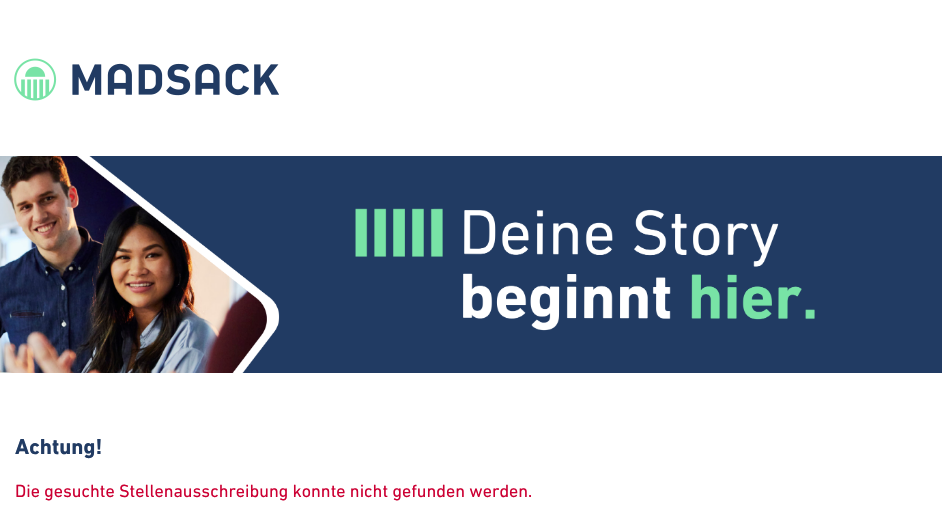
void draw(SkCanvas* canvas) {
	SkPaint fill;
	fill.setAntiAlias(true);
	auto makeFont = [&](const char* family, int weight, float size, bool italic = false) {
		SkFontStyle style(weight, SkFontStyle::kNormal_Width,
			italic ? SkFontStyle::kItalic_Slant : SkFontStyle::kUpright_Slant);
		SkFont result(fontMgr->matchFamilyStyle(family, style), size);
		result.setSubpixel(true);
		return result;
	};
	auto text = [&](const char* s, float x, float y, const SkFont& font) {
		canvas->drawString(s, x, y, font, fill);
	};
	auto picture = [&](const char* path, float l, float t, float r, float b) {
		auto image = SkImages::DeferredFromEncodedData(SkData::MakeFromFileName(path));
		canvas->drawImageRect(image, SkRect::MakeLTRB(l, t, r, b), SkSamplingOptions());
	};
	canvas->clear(0xFFFFFFFF);
	picture("image0.png", 14, 58, 279, 101);
	picture("image1.png", 0, 156, 942, 373);
	auto font1 = makeFont("DIN Next", 700, 22);
	fill.setColor(0xFF213B63);
	text("Achtung!", 15, 454, font1);
	auto font2 = makeFont("DIN Next", 400, 18);
	fill.setColor(0xFFCC0033);
	text("Die gesuchte Stellenausschreibung konnte nicht gefunden werden.", 15, 497, font2);
}
